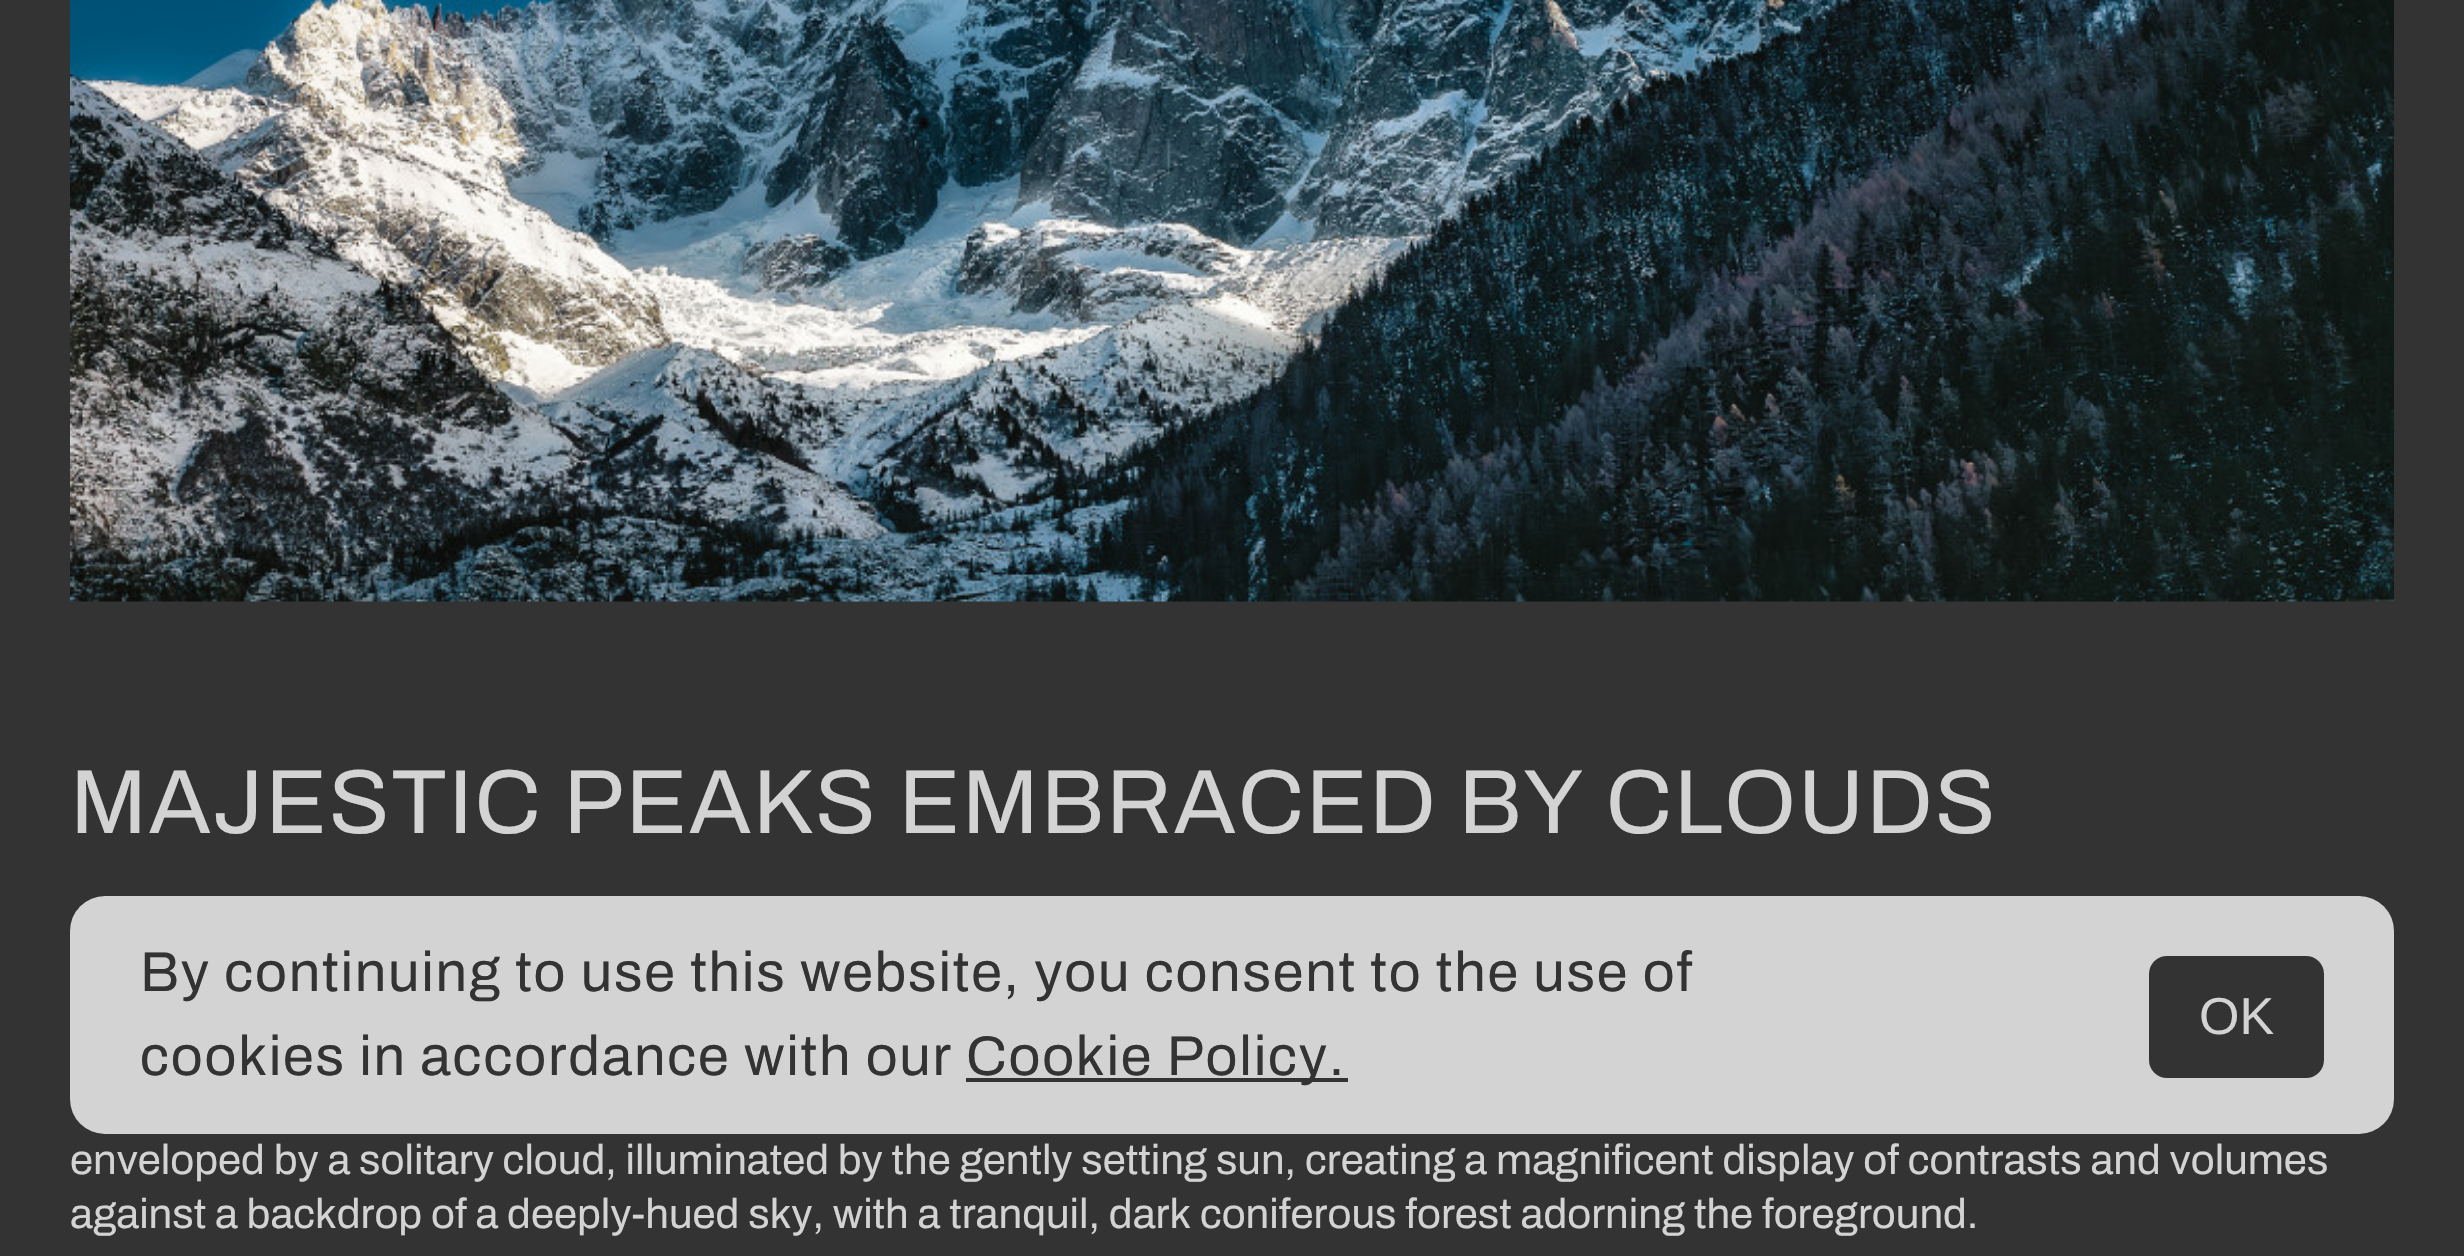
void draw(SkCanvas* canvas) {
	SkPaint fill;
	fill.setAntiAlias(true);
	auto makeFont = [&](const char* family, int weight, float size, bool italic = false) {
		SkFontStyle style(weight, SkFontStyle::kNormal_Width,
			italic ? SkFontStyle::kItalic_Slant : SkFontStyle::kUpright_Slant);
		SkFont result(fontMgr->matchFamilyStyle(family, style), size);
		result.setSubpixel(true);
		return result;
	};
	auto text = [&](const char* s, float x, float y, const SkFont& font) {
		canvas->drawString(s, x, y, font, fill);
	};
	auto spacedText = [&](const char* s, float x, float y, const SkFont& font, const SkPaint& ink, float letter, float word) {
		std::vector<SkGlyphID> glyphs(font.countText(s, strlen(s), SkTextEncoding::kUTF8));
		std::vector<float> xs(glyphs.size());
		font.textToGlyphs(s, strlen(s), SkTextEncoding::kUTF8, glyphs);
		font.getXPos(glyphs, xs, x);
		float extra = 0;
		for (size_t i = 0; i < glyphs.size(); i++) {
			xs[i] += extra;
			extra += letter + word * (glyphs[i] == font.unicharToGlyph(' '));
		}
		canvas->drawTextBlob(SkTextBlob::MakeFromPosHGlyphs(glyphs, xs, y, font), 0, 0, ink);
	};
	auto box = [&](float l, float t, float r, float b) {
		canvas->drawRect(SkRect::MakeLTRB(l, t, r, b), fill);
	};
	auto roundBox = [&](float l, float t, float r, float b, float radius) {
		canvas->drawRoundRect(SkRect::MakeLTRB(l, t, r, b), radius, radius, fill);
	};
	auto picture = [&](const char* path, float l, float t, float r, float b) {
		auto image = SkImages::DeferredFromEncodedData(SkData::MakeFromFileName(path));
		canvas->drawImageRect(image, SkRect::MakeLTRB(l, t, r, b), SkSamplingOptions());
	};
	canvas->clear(0xFF333333);
	picture("image0.png", 70, 0, 2394, 602);
	fill.setColor(0xFFD3D3D3);
	roundBox(70, 896, 2394, 1134, 35);
	fill.setColor(0xFF333333);
	box(966, 1078, 1348, 1082);
	roundBox(2149, 956, 2324, 1078, 18);
	auto font1 = makeFont("Archivo", 400, 91);
	fill.setColor(0xFFD3D3D3);
	spacedText("MAJESTIC PEAKS EMBRACED BY CLOUDS", 70, 833, font1, fill, 1.75f, 0);
	auto font2 = makeFont("Archivo", 400, 42);
	text("enveloped by a solitary cloud, illuminated by the gently setting sun, creating a magnificent display of contrasts and volumes", 70, 1174, font2);
	text("against a backdrop of a deeply-hued sky, with a tranquil, dark coniferous forest adorning the foreground.", 70, 1228, font2);
	auto font3 = makeFont("Archivo", 400, 56);
	fill.setColor(0xFF333333);
	spacedText("By continuing to use this website, you consent to the use of", 140, 991, font3, fill, 1.75f, 0);
	spacedText("cookies in accordance with our", 140, 1075, font3, fill, 1.75f, 0);
	spacedText("Cookie Policy.", 966, 1075, font3, fill, 1.75f, 0);
	auto font4 = makeFont("Liberation Sans", 400, 52);
	fill.setColor(0xFFD3D3D3);
	text("OK", 2199, 1034, font4);
}
